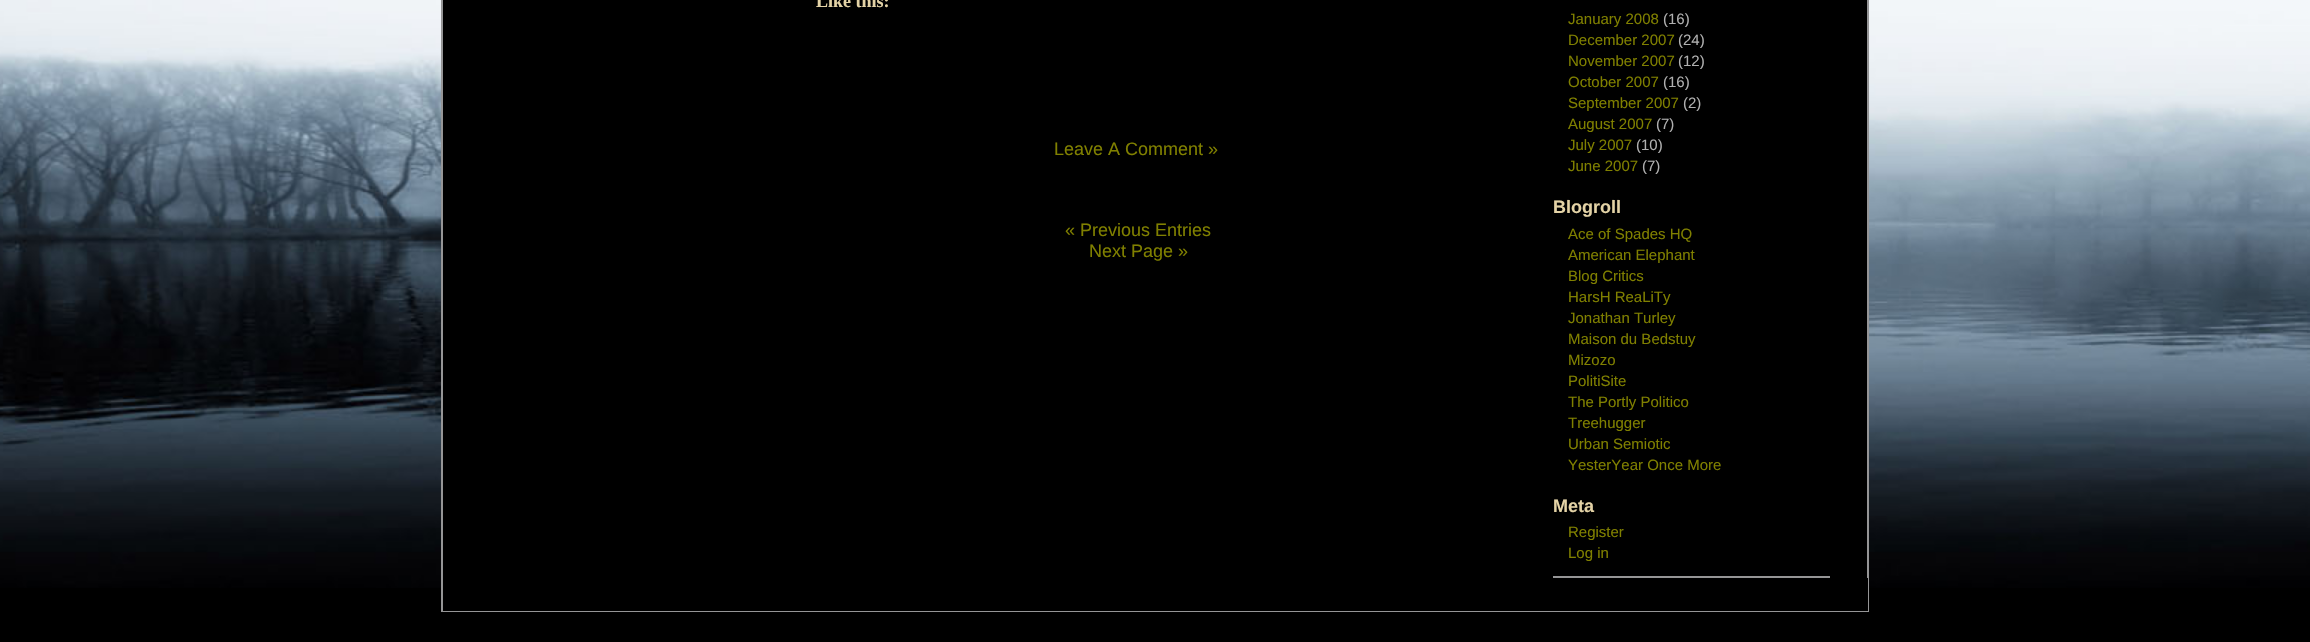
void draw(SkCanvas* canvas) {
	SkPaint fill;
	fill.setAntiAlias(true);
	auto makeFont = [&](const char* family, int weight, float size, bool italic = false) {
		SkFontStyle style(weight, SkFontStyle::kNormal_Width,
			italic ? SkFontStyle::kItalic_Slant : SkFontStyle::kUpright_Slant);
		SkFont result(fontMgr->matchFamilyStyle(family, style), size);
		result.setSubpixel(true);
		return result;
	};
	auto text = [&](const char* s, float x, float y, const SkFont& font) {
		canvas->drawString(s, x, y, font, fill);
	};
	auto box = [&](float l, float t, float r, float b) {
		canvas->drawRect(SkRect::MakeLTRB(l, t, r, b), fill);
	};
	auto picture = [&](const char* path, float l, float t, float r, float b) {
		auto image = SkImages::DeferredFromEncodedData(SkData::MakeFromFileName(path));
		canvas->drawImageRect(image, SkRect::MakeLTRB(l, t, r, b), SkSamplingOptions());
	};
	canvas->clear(0xFF000000);
	picture("image0.png", 0, 0, 2310, 588);
	fill.setColor(0xFF000000);
	box(443, 0, 1867, 578);
	fill.setStyle(SkPaint::kStroke_Style);
	fill.setStrokeWidth(2);
	fill.setColor(0xFF959596);
	canvas->drawRect(SkRect::MakeLTRB(442, -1, 1868, 611), fill);
	fill.setStyle(SkPaint::kFill_Style);
	box(1553, 576, 1830, 578);
	fill.setColor(0xFF000000);
	box(443, 578, 1868, 611);
	auto font1 = makeFont("Liberation Serif", 700, 18);
	fill.setColor(0xFFE4D3A6);
	text("Like this:", 816, 7, font1);
	auto font2 = makeFont("Liberation Sans", 400, 18);
	fill.setColor(0xFF808000);
	text("Leave A Comment »", 1054, 155, font2);
	text("« Previous Entries", 1065, 236, font2);
	text("Next Page »", 1089, 257, font2);
	auto font3 = makeFont("Liberation Sans", 400, 15);
	text("January 2008", 1568, 24, font3);
	fill.setColor(0xFFB0B0B0);
	text("(16)", 1663, 24, font3);
	fill.setColor(0xFF808000);
	text("December 2007", 1568, 45, font3);
	fill.setColor(0xFFB0B0B0);
	text("(24)", 1678, 45, font3);
	fill.setColor(0xFF808000);
	text("November 2007", 1568, 66, font3);
	fill.setColor(0xFFB0B0B0);
	text("(12)", 1678, 66, font3);
	fill.setColor(0xFF808000);
	text("October 2007", 1568, 87, font3);
	fill.setColor(0xFFB0B0B0);
	text("(16)", 1663, 87, font3);
	fill.setColor(0xFF808000);
	text("September 2007", 1568, 108, font3);
	fill.setColor(0xFFB0B0B0);
	text("(2)", 1683, 108, font3);
	fill.setColor(0xFF808000);
	text("August 2007", 1568, 129, font3);
	fill.setColor(0xFFB0B0B0);
	text("(7)", 1656, 129, font3);
	fill.setColor(0xFF808000);
	text("July 2007", 1568, 150, font3);
	fill.setColor(0xFFB0B0B0);
	text("(10)", 1636, 150, font3);
	fill.setColor(0xFF808000);
	text("June 2007", 1568, 171, font3);
	fill.setColor(0xFFB0B0B0);
	text("(7)", 1642, 171, font3);
	auto font4 = makeFont("Liberation Sans", 700, 18);
	fill.setColor(0xFFE4D3A6);
	text("Blogroll", 1553, 213, font4);
	fill.setColor(0xFF808000);
	text("Ace of Spades HQ", 1568, 239, font3);
	text("American Elephant", 1568, 260, font3);
	text("Blog Critics", 1568, 281, font3);
	text("HarsH ReaLiTy", 1568, 302, font3);
	text("Jonathan Turley", 1568, 323, font3);
	text("Maison du Bedstuy", 1568, 344, font3);
	text("Mizozo", 1568, 365, font3);
	text("PolitiSite", 1568, 386, font3);
	text("The Portly Politico", 1568, 407, font3);
	text("Treehugger", 1568, 428, font3);
	text("Urban Semiotic", 1568, 449, font3);
	text("YesterYear Once More", 1568, 470, font3);
	fill.setColor(0xFFE4D3A6);
	text("Meta", 1553, 512, font4);
	fill.setColor(0xFF808000);
	text("Register", 1568, 537, font3);
	text("Log in", 1568, 558, font3);
}
